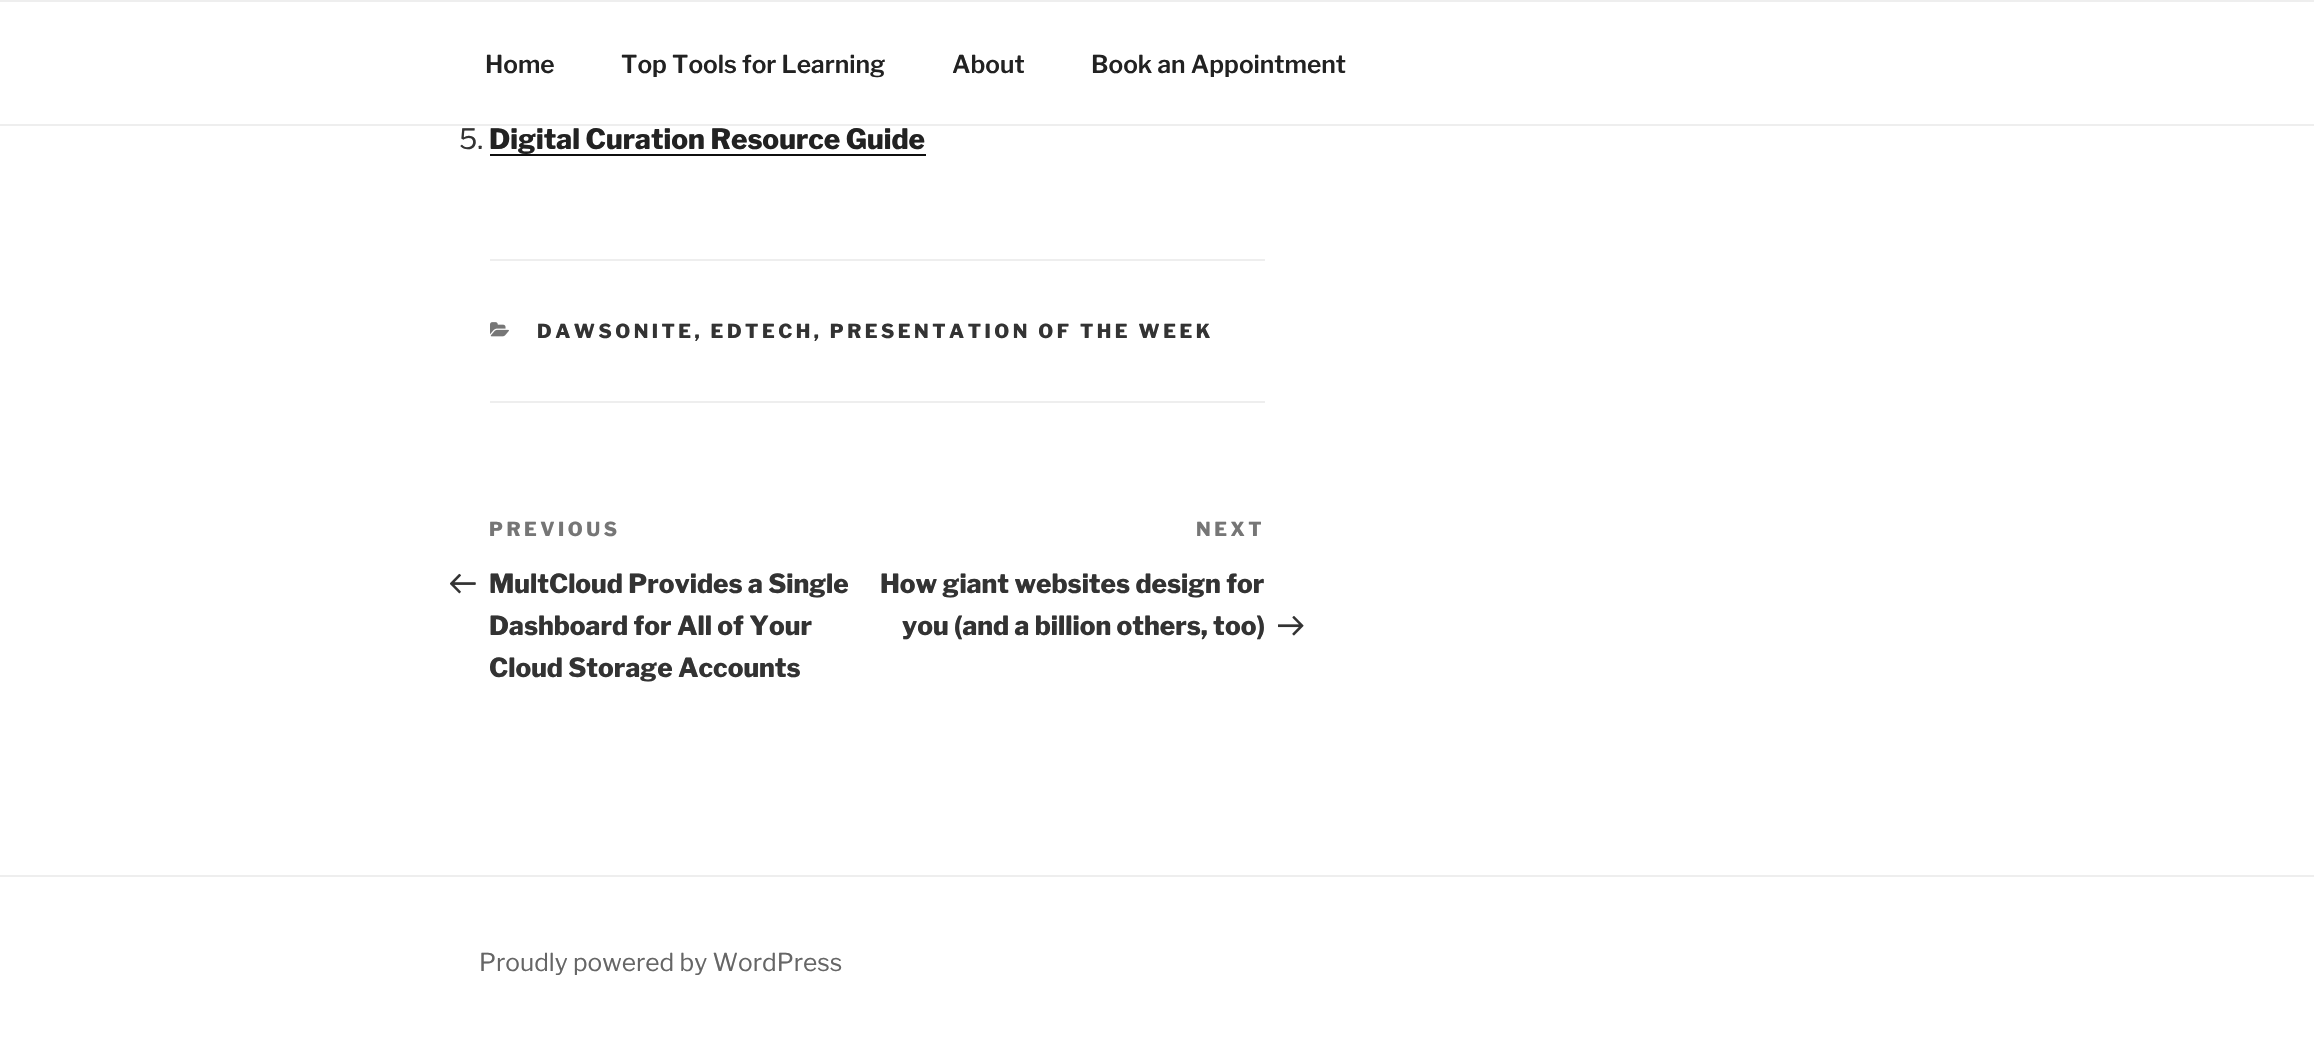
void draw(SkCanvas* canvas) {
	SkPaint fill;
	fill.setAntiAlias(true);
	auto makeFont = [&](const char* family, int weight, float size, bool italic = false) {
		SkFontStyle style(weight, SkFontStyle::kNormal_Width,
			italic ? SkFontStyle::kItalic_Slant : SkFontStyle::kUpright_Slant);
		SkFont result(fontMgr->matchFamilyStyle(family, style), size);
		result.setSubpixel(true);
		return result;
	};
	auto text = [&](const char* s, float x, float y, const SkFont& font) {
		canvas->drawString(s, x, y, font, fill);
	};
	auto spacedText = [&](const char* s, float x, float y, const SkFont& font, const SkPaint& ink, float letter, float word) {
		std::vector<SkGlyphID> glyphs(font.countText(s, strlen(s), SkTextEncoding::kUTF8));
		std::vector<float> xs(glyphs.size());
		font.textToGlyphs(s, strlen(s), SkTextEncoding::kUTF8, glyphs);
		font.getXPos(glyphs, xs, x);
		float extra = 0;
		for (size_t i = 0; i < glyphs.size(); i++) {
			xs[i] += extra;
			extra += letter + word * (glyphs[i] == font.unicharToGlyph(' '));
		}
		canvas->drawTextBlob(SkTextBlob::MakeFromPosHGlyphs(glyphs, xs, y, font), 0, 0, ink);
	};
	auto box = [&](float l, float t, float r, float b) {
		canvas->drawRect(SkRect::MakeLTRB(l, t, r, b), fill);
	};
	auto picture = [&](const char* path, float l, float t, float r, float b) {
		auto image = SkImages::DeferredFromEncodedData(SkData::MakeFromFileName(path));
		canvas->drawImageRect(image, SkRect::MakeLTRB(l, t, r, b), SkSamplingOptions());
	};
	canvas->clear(0xFFFFFFFF);
	fill.setColor(0xFFEEEEEE);
	box(0, 0, 2314, 2);
	box(0, 124, 2314, 126);
	fill.setColor(0xFF0F0F0F);
	box(490, 154, 926, 156);
	fill.setColor(0xFFEEEEEE);
	box(490, 259, 1265, 261);
	box(490, 401, 1265, 403);
	picture("image0.png", 490, 322, 509, 337);
	picture("image1.png", 450, 573, 476, 594);
	picture("image2.png", 1278, 616, 1304, 636);
	box(0, 875, 2314, 877);
	auto font1 = makeFont("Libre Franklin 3", 100, 24.5f);
	fill.setColor(0xFF222222);
	text("Home", 485, 73, font1);
	text("Top Tools for Learning", 621, 73, font1);
	text("About", 952, 73, font1);
	text("Book an Appointment", 1091, 73, font1);
	auto font2 = makeFont("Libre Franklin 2", 100, 28);
	fill.setColor(0xFF333333);
	text("5.", 459, 149, font2);
	auto font3 = makeFont("Libre Franklin", 100, 28);
	fill.setColor(0xFF222222);
	text("Digital Curation Resource Guide", 489, 149, font3);
	auto font4 = makeFont("Libre Franklin", 100, 19.25f);
	fill.setColor(0xFF333333);
	spacedText("DAWSONITE, EDTECH, PRESENTATION OF THE WEEK", 537, 338, font4, fill, 3.5f, 0);
	fill.setColor(0xFF767676);
	spacedText("PREVIOUS", 489, 536, font4, fill, 3.5f, 0);
	auto font5 = makeFont("Libre Franklin", 100, 26.25f);
	fill.setColor(0xFF333333);
	text("MultCloud Provides a Single", 489, 593, font5);
	text("Dashboard for All of Your", 489, 635, font5);
	text("Cloud Storage Accounts", 489, 677, font5);
	fill.setColor(0xFF767676);
	spacedText("NEXT", 1196, 536, font4, fill, 3.5f, 0);
	fill.setColor(0xFF333333);
	text("How giant websites design for", 880, 593, font5);
	text("you (and a billion others, too)", 902, 635, font5);
	auto font6 = makeFont("Libre Franklin 2", 100, 24.5f);
	fill.setColor(0xFF666666);
	text("Proudly powered by WordPress", 479, 971, font6);
}
